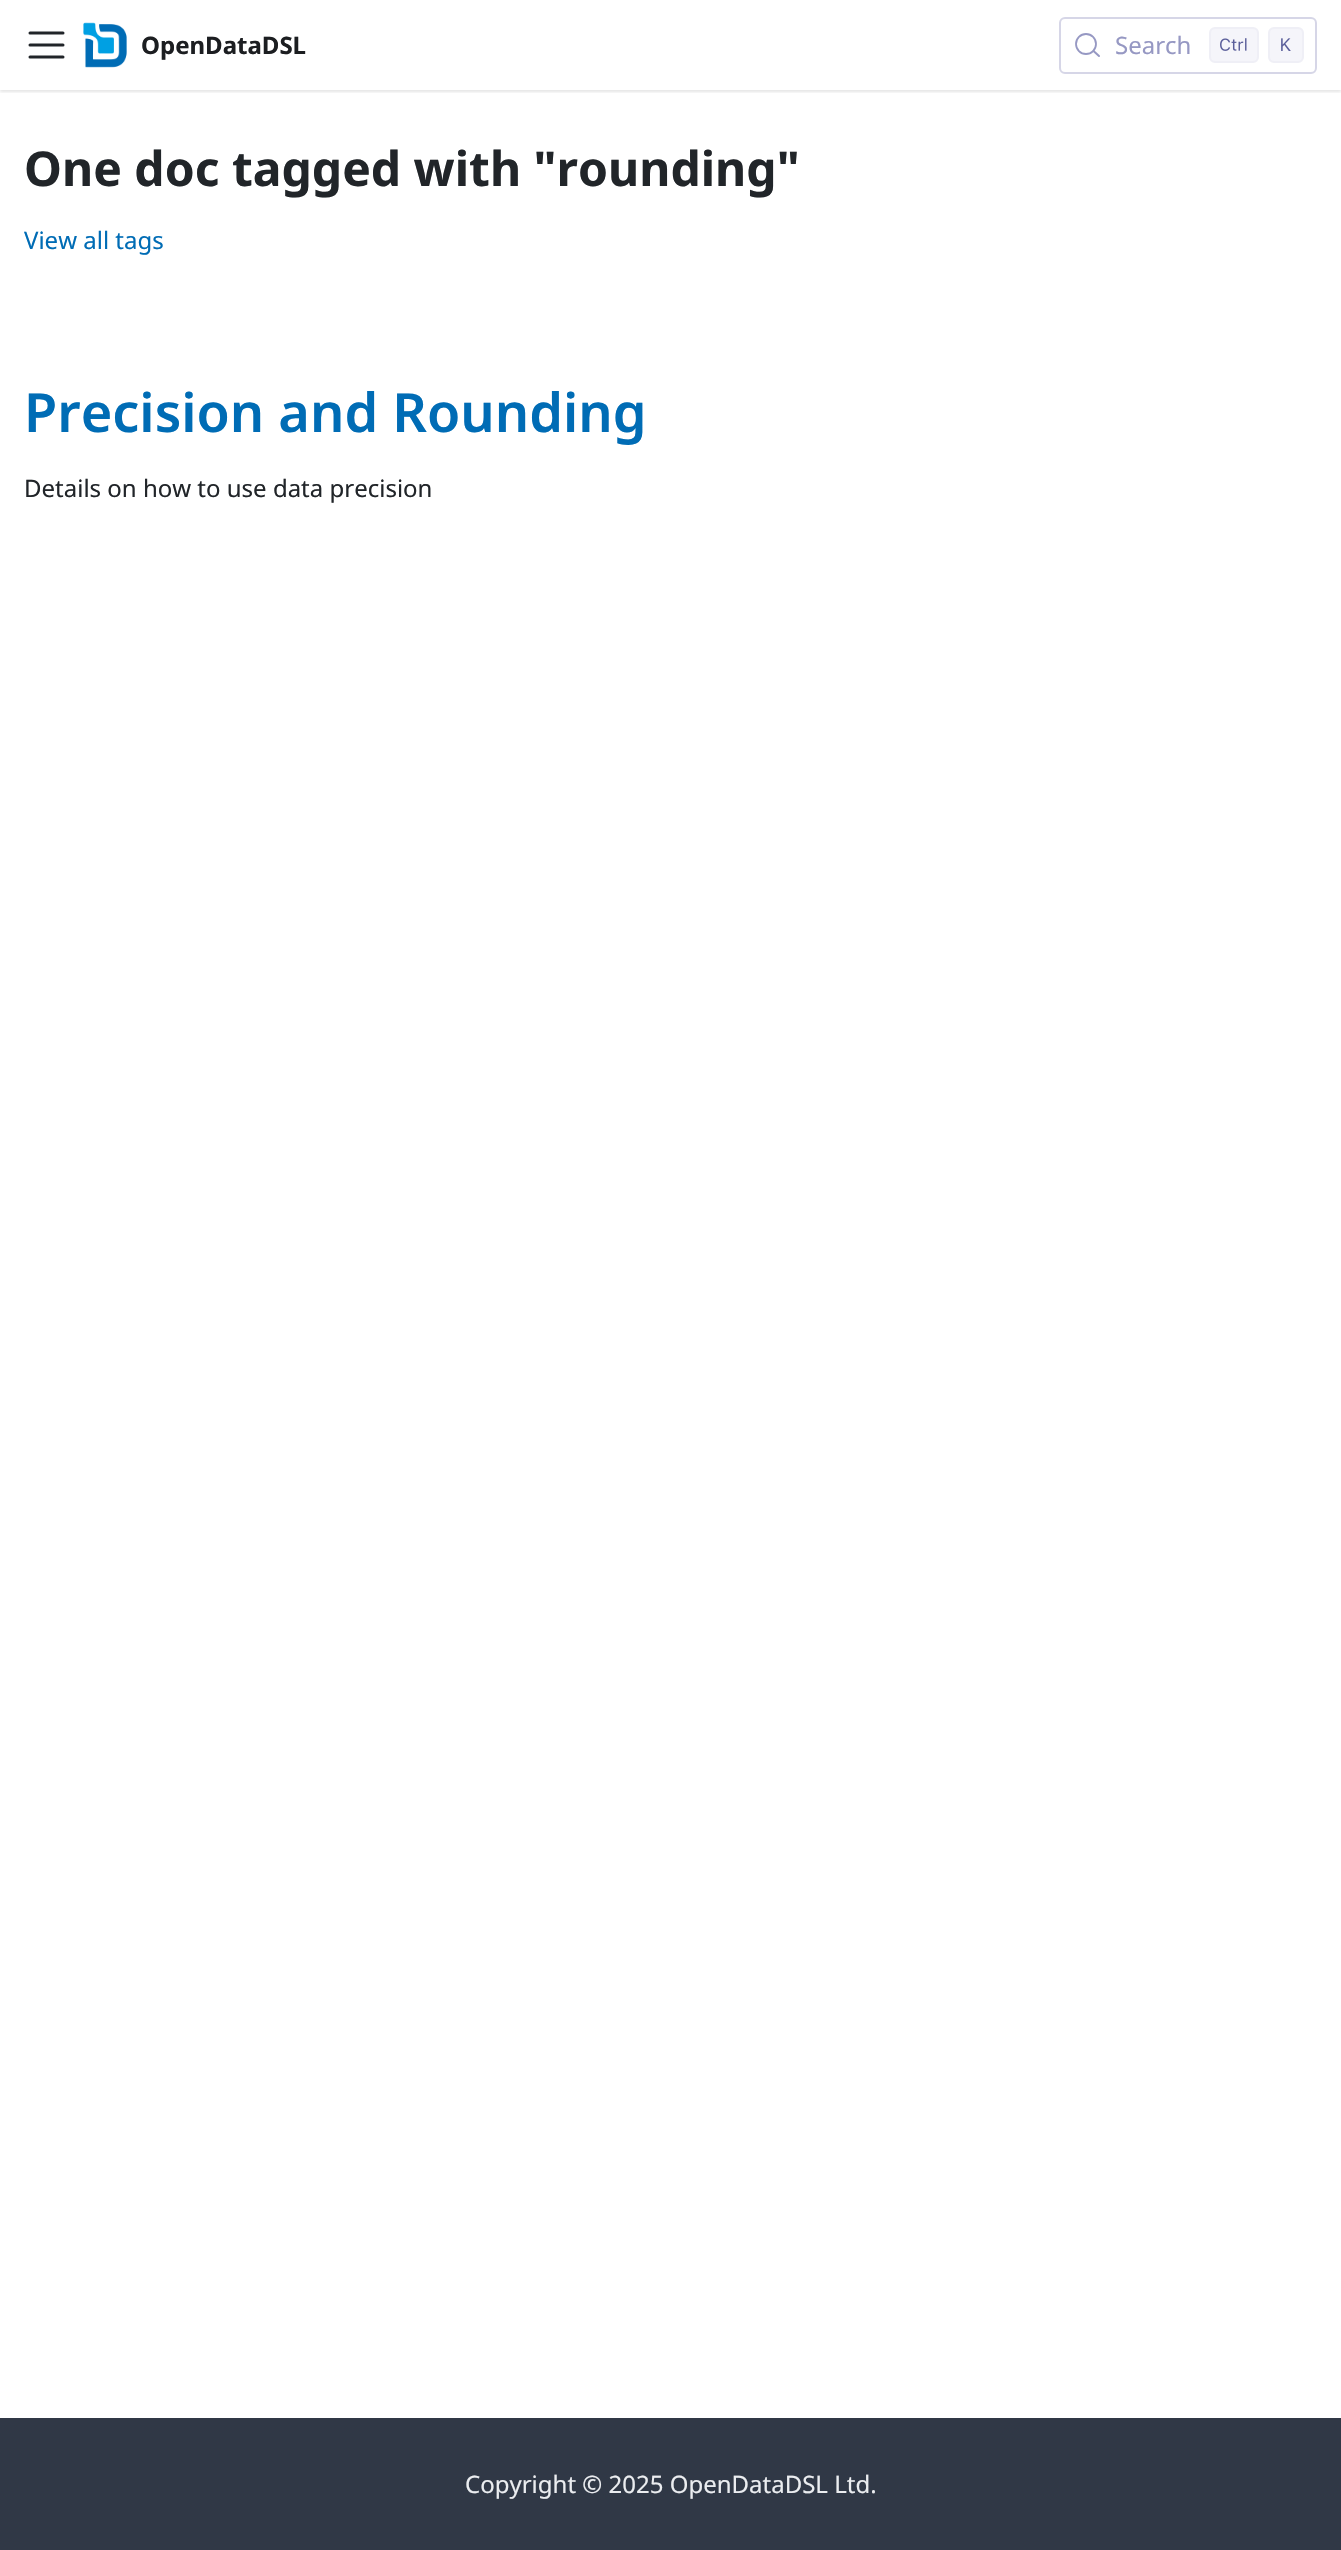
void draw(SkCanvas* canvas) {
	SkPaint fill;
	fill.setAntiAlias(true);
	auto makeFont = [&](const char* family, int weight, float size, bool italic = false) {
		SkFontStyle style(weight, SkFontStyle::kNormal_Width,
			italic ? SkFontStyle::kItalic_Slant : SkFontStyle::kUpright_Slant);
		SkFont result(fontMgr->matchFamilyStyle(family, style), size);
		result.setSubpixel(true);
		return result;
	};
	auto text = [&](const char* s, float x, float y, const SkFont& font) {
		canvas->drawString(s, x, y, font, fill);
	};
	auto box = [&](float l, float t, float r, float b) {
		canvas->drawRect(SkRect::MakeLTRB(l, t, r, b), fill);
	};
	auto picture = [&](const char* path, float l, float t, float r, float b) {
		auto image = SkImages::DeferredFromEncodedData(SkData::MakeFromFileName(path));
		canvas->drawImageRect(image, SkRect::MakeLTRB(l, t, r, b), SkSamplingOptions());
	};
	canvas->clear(0xFFFFFFFF);
	canvas->save();
	canvas->clipRect(SkRect::MakeLTRB(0, 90, 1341, 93));
	fill.setColor(0x1A000000);
	fill.setMaskFilter(SkMaskFilter::MakeBlur(kNormal_SkBlurStyle, 1.5f));
	canvas->drawRect(SkRect::MakeLTRB(0, 2, 1341, 92), fill);
	fill.setMaskFilter(nullptr);
	canvas->restore();
	fill.setStyle(SkPaint::kStroke_Style);
	fill.setStrokeWidth(3);
	fill.setStrokeCap(SkPaint::kRound_Cap);
	fill.setColor(0xFF212529);
	canvas->drawPath(SkPathBuilder().moveTo(30, 33).lineTo(63, 33).moveTo(30, 45).lineTo(63, 45).moveTo(30, 57).lineTo(63, 57).detach(), fill);
	picture("image0.png", 83, 22, 127, 68);
	fill.setStrokeWidth(2);
	fill.setStrokeCap(SkPaint::kButt_Cap);
	fill.setColor(0xFFD6D6E7);
	canvas->drawRoundRect(SkRect::MakeLTRB(1060, 18, 1316, 73), 5, 5, fill);
	fill.setStrokeWidth(1.8f);
	fill.setColor(0xFF9698C3);
	canvas->drawCircle(1086, 44, 10, fill);
	fill.setStrokeWidth(2);
	fill.setStrokeCap(SkPaint::kRound_Cap);
	fill.setStrokeJoin(SkPaint::kRound_Join);
	canvas->drawPath(SkPathBuilder().moveTo(1099, 56).lineTo(1093.5f, 51).detach(), fill);
	fill.setStyle(SkPaint::kFill_Style);
	fill.setColor(0xFFF5F5FA);
	canvas->drawRoundRect(SkRect::MakeLTRB(1210, 28, 1258, 62), 5, 5, fill);
	fill.setStyle(SkPaint::kStroke_Style);
	fill.setStrokeCap(SkPaint::kButt_Cap);
	fill.setStrokeJoin(SkPaint::kMiter_Join);
	fill.setColor(0xFFEFEFF6);
	canvas->drawRoundRect(SkRect::MakeLTRB(1210, 28, 1258, 62), 5, 5, fill);
	picture("image1.png", 1220, 38, 1247, 51);
	fill.setStyle(SkPaint::kFill_Style);
	fill.setColor(0xFFF5F5FA);
	canvas->drawRoundRect(SkRect::MakeLTRB(1269, 28, 1303, 62), 5, 5, fill);
	fill.setStyle(SkPaint::kStroke_Style);
	fill.setColor(0xFFEFEFF6);
	canvas->drawRoundRect(SkRect::MakeLTRB(1269, 28, 1303, 62), 5, 5, fill);
	picture("image2.png", 1281, 38, 1291, 51);
	fill.setStyle(SkPaint::kFill_Style);
	fill.setColor(0xFF303846);
	box(0, 2418, 1341, 2550);
	auto font1 = makeFont("Noto Sans", 700, 24);
	fill.setColor(0xFF1C1E21);
	text("OpenDataDSL", 141, 54, font1);
	auto font2 = makeFont("Noto Sans", 400, 24);
	fill.setColor(0xFF9698C3);
	text("Search", 1115, 54, font2);
	auto font3 = makeFont("Noto Sans", 700, 48);
	fill.setColor(0xFF212529);
	text("One doc tagged with \"rounding\"", 24, 186, font3);
	fill.setColor(0xFF006CB5);
	text("View all tags", 24, 249, font2);
	auto font4 = makeFont("Noto Sans", 600, 54);
	text("Precision and Rounding", 24, 432, font4);
	fill.setColor(0xFF212529);
	text("Details on how to use data precision", 24, 497, font2);
	fill.setColor(0xFFEBEDF0);
	text("Copyright © 2025 OpenDataDSL Ltd.", 465, 2493, font2);
}
